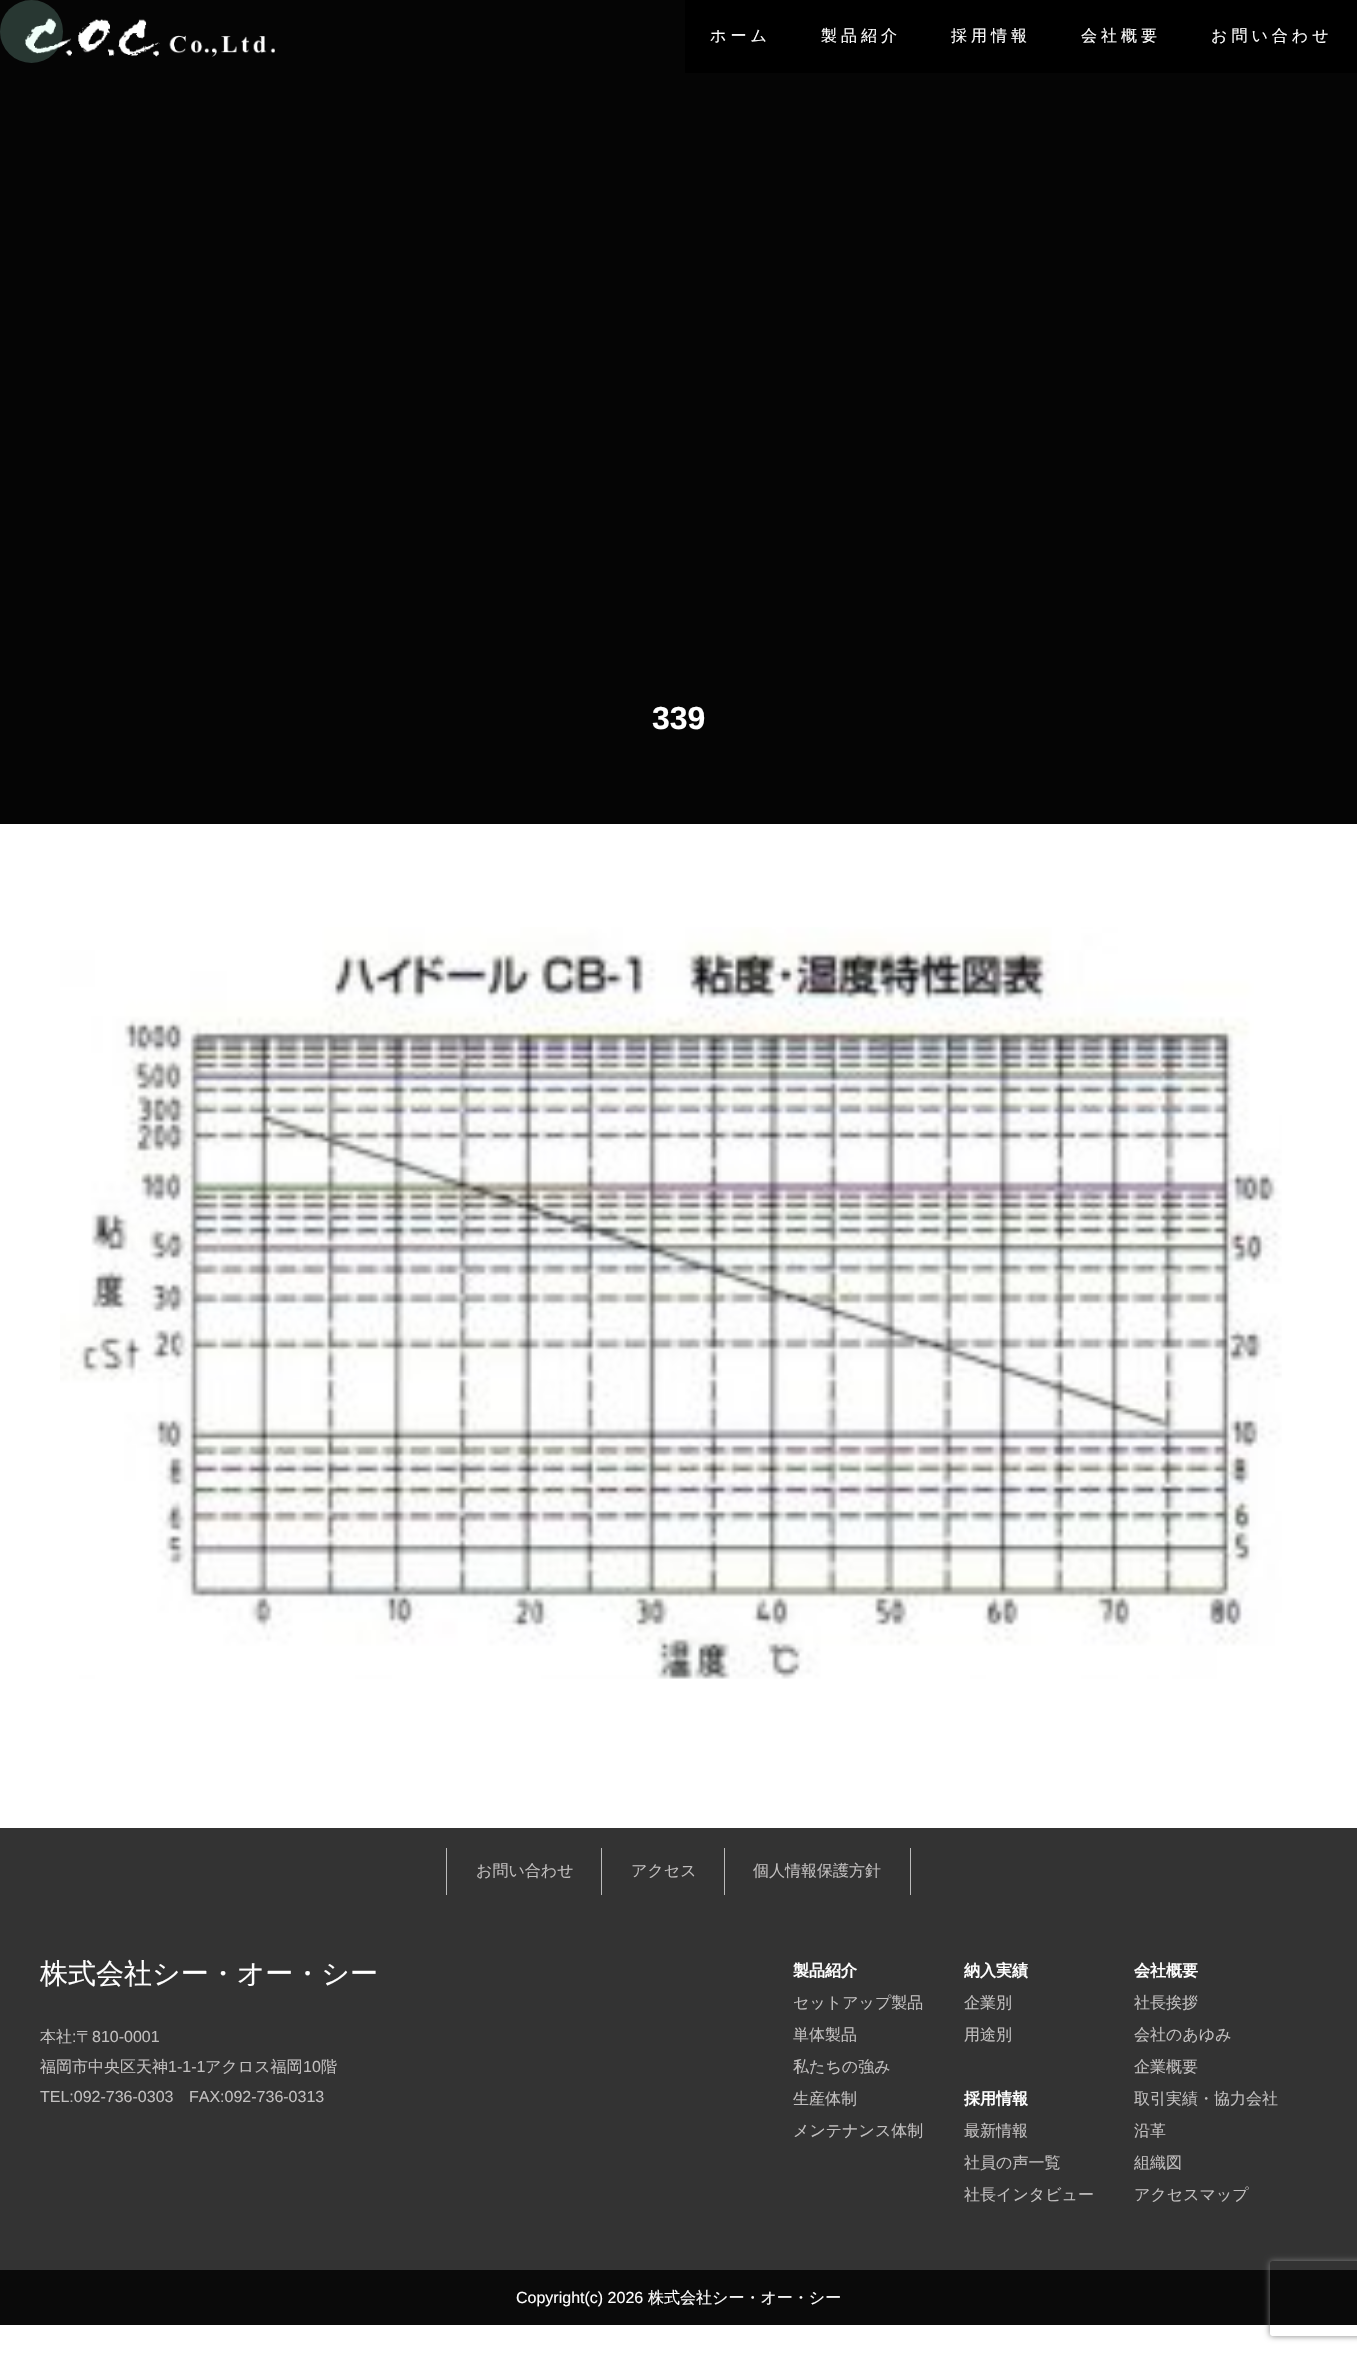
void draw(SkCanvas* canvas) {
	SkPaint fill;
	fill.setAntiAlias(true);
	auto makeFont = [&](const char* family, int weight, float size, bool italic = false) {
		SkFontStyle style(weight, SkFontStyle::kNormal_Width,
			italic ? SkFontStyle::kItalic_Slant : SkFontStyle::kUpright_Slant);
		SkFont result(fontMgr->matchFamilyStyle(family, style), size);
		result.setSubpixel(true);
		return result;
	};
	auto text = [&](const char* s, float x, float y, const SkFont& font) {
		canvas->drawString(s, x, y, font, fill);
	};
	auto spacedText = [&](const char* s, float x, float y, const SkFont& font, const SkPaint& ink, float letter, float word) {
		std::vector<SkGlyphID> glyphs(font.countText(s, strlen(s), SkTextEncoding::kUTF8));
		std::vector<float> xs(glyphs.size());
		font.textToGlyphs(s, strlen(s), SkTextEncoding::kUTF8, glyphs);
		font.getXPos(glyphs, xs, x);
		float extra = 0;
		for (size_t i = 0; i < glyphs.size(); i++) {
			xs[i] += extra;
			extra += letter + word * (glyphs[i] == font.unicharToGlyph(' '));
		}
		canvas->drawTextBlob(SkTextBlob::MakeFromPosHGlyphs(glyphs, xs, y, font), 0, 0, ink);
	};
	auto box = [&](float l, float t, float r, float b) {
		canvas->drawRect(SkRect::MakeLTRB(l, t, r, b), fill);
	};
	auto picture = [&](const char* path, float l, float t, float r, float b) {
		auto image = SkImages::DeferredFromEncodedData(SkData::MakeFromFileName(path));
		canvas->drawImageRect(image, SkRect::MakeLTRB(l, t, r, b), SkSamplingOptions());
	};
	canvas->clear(0xFFFFFFFF);
	fill.setColor(0xFF050505);
	box(0, 0, 1357, 824);
	picture("image0.png", 25, 18, 275, 57);
	fill.setColor(0x33B3FFE6);
	canvas->drawCircle(31.5f, 31.5f, 31.5f, fill);
	fill.setColor(0xFF000000);
	box(685, 0, 1357, 73);
	picture("image1.png", 60, 927, 1282, 1679);
	fill.setColor(0xFF333333);
	box(0, 1828, 1357, 2270);
	fill.setColor(0xFFBBBBBB);
	box(601, 1848, 602, 1895);
	box(446, 1848, 447, 1895);
	box(724, 1848, 725, 1895);
	box(910, 1848, 911, 1895);
	fill.setColor(0xFF0A0A0A);
	box(0, 2270, 1357, 2325);
	canvas->save();
	canvas->clipPath(SkPathBuilder(SkPathFillType::kEvenOdd).moveTo(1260, 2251).lineTo(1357, 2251).lineTo(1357, 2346).lineTo(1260, 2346).close().moveTo(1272.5f, 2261).lineTo(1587.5f, 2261).cubicTo(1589, 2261, 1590, 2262, 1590, 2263.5f).lineTo(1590, 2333.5f).cubicTo(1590, 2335, 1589, 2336, 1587.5f, 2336).lineTo(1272.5f, 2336).cubicTo(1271, 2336, 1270, 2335, 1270, 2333.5f).lineTo(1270, 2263.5f).cubicTo(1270, 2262, 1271, 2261, 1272.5f, 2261).close().detach(), true);
	fill.setColor(0xFF808080);
	fill.setMaskFilter(SkMaskFilter::MakeBlur(kNormal_SkBlurStyle, 3));
	canvas->drawRoundRect(SkRect::MakeLTRB(1270, 2261, 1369, 2336), 2.5f, 2.5f, fill);
	fill.setMaskFilter(nullptr);
	canvas->restore();
	auto font1 = makeFont("WenQuanYi Zen Hei", 500, 16);
	fill.setColor(0xFFFFFFFF);
	spacedText("ホーム", 710, 41, font1, fill, 4, 0);
	spacedText("製品紹介", 821, 41, font1, fill, 4, 0);
	spacedText("採用情報", 951, 41, font1, fill, 4, 0);
	spacedText("会社概要", 1081, 41, font1, fill, 4, 0);
	spacedText("お問い合わせ", 1211, 41, font1, fill, 4, 0);
	auto font2 = makeFont("Liberation Sans", 700, 32);
	text("339", 652, 729, font2);
	fill.setColor(0xFFC1BFBF);
	text("お問い合わせ", 476, 1876, font1);
	text("アクセス", 631, 1876, font1);
	text("個人情報保護方針", 753, 1876, font1);
	auto font3 = makeFont("WenQuanYi Zen Hei", 500, 28);
	fill.setColor(0xFFFFFFFF);
	text("株式会社シー・オー・シー", 40, 1983, font3);
	fill.setColor(0xFFC1BFBF);
	text("本社", 40, 2042, font1);
	auto font4 = makeFont("Liberation Sans", 400, 16);
	text(":", 72, 2042, font4);
	text("〒", 76, 2042, font1);
	text("810-0001", 92, 2042, font4);
	text("福岡市中央区天神", 40, 2072, font1);
	text("1-1-1", 168, 2072, font4);
	text("アクロス福岡", 205, 2072, font1);
	text("10", 303, 2072, font4);
	text("階", 321, 2072, font1);
	text("TEL:092-736-0303", 40, 2102, font4);
	text("FAX:092-736-0313", 189, 2102, font4);
	auto font5 = makeFont("WenQuanYi Zen Hei", 700, 16);
	fill.setColor(0xFFFFFFFF);
	text("製品紹介", 793, 1976, font5);
	fill.setColor(0xFFC1BFBF);
	text("セットアップ製品", 793, 2008, font1);
	text("単体製品", 793, 2040, font1);
	text("私たちの強み", 793, 2072, font1);
	text("生産体制", 793, 2104, font1);
	text("メンテナンス体制", 793, 2136, font1);
	fill.setColor(0xFFFFFFFF);
	text("納入実績", 964, 1976, font5);
	fill.setColor(0xFFC1BFBF);
	text("企業別", 964, 2008, font1);
	text("用途別", 964, 2040, font1);
	fill.setColor(0xFFFFFFFF);
	text("採用情報", 964, 2104, font5);
	fill.setColor(0xFFC1BFBF);
	text("最新情報", 964, 2136, font1);
	text("社員の声一覧", 964, 2168, font1);
	text("社長インタビュー", 964, 2200, font1);
	fill.setColor(0xFFFFFFFF);
	text("会社概要", 1134, 1976, font5);
	fill.setColor(0xFFC1BFBF);
	text("社長挨拶", 1134, 2008, font1);
	text("会社のあゆみ", 1134, 2040, font1);
	text("企業概要", 1134, 2072, font1);
	text("取引実績・協力会社", 1134, 2104, font1);
	text("沿革", 1134, 2136, font1);
	text("組織図", 1134, 2168, font1);
	text("アクセスマップ", 1134, 2200, font1);
	fill.setColor(0xFFFFFFFF);
	text("Copyright(c) 2026", 516, 2303, font4);
	text("株式会社シー・オー・シー", 648, 2303, font1);
}
